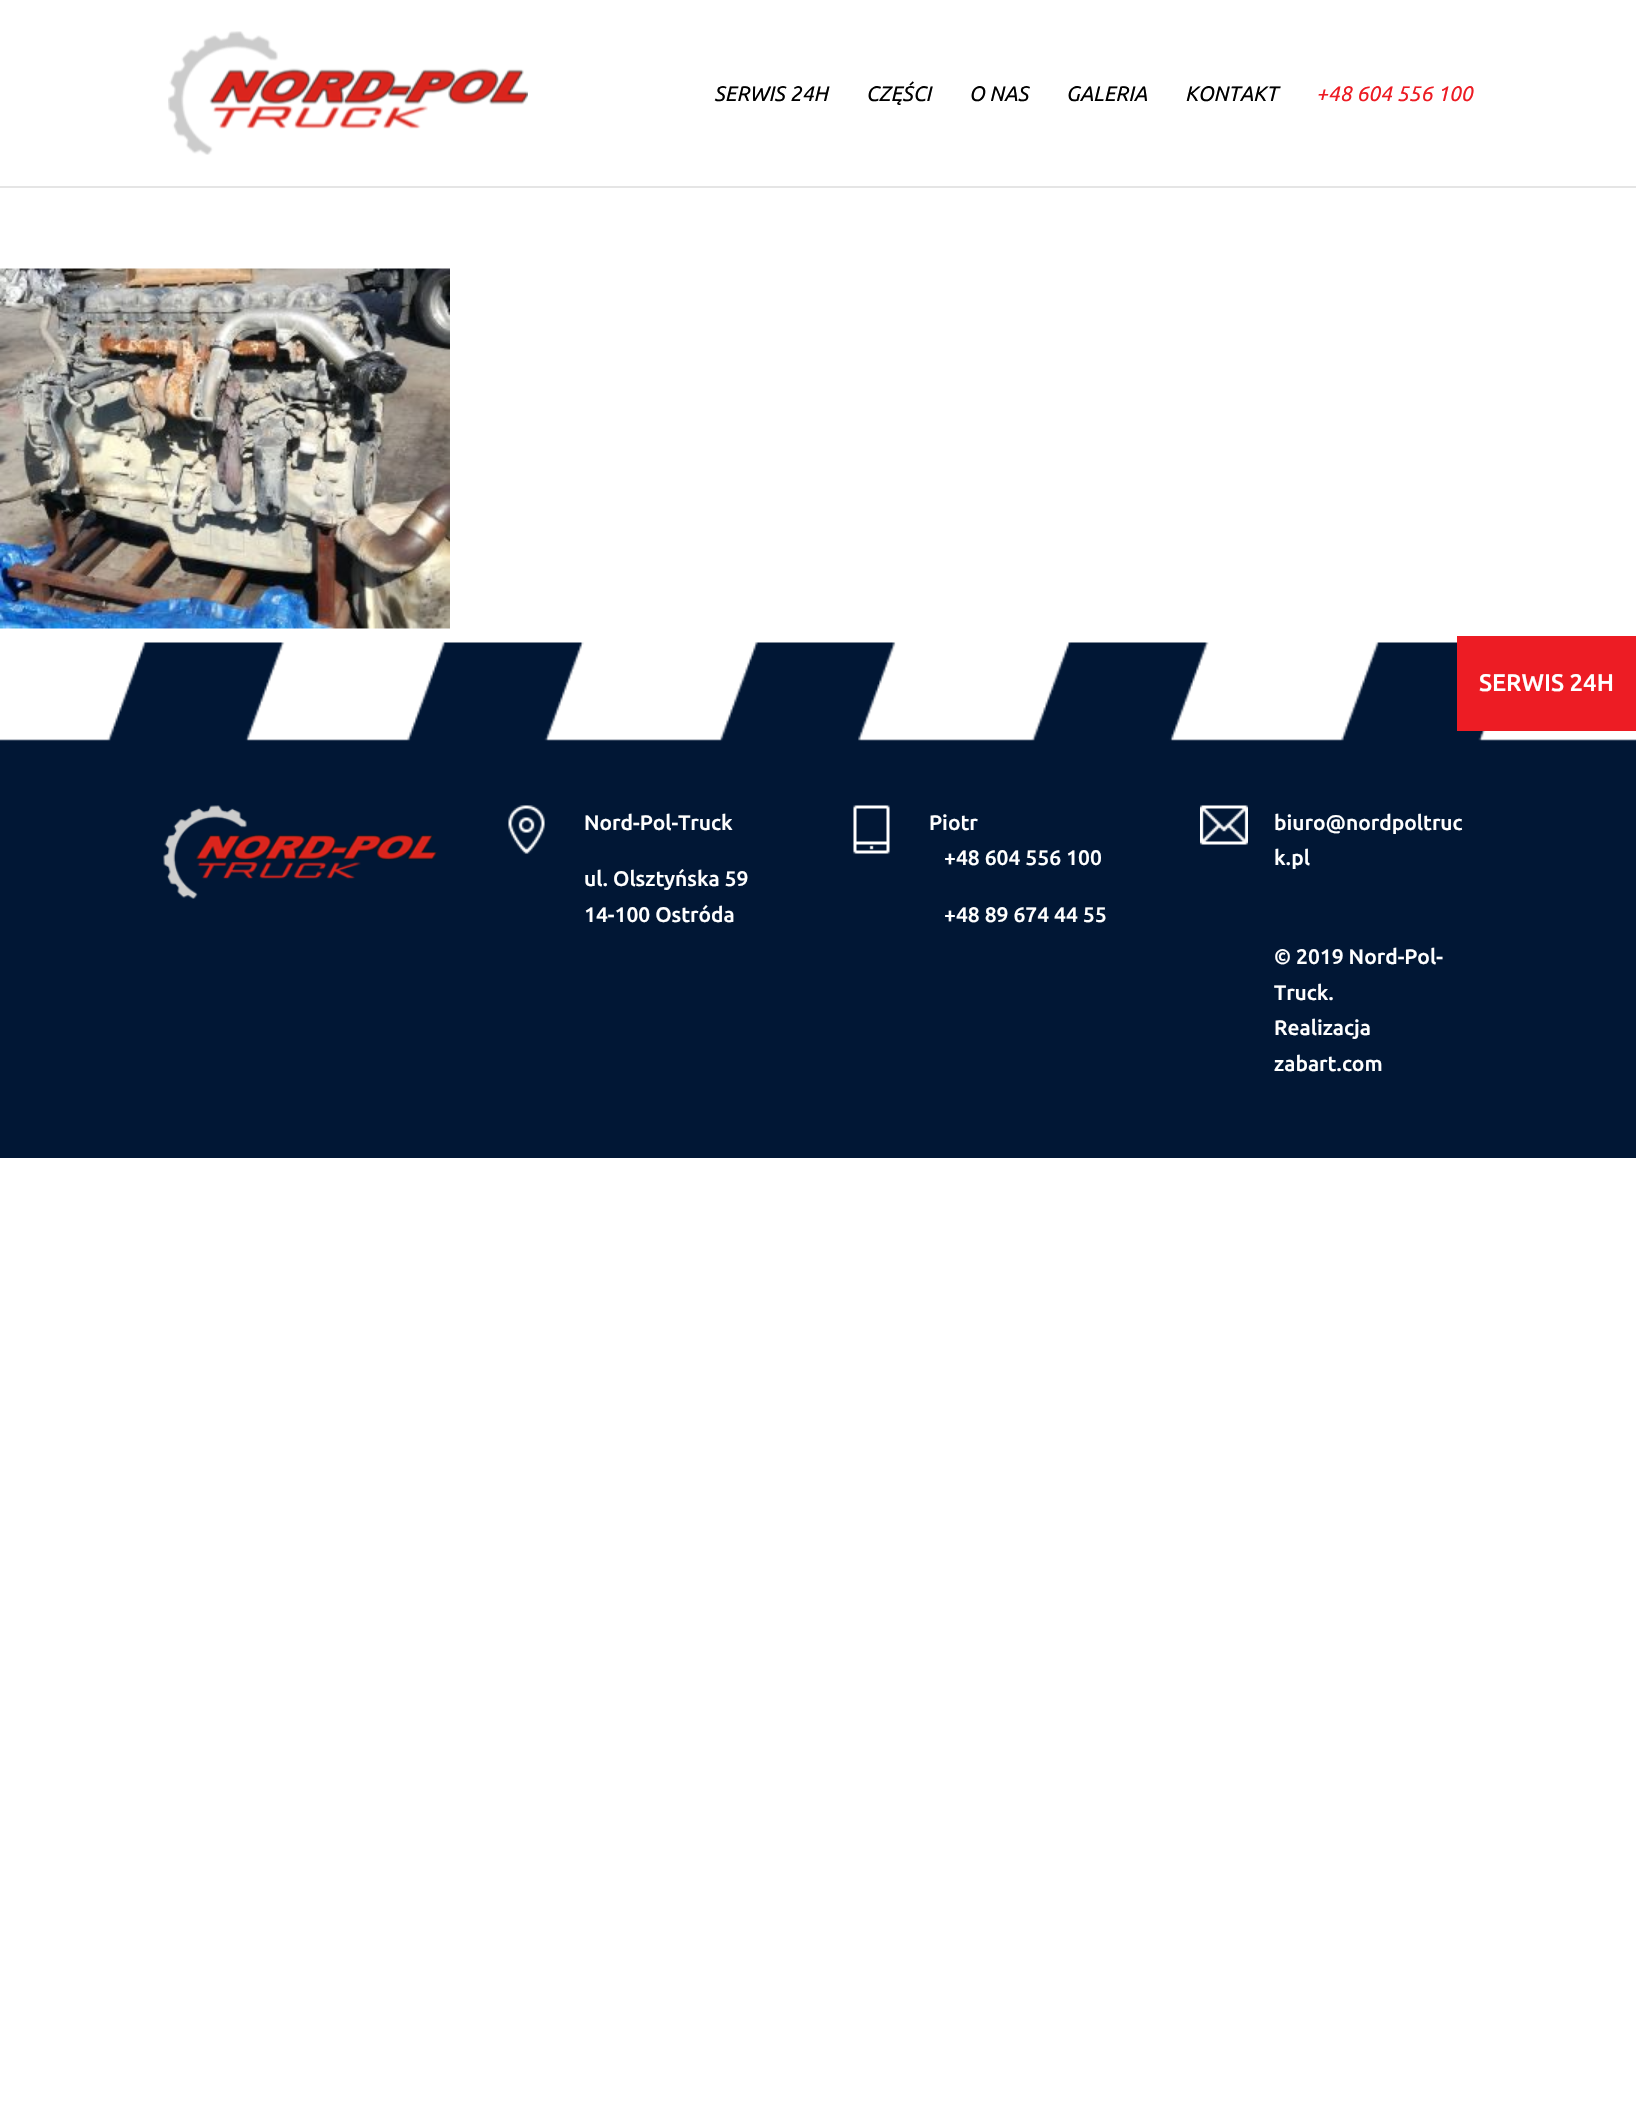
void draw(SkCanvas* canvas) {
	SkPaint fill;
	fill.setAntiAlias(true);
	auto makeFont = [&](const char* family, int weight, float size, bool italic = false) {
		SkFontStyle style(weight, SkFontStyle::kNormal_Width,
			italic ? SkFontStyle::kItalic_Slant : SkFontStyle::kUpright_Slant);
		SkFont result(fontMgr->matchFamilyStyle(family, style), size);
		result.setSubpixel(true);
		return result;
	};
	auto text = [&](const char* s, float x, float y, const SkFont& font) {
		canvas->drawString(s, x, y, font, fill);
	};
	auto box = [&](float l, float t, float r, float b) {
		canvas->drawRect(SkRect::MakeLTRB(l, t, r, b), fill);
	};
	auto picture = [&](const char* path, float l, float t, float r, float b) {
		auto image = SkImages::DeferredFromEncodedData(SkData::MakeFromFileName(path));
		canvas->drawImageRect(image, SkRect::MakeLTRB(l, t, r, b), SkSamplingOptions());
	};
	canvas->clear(0xFFFFFFFF);
	fill.setColor(0x1A000000);
	canvas->drawPath(SkPathBuilder().moveTo(0, 186).lineTo(0, 188).lineTo(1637, 188).lineTo(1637, 2).lineTo(1636, 2).lineTo(1636, 186).close().detach(), fill);
	picture("image0.png", 168, 31, 528, 155);
	picture("image1.png", 0, 268, 450, 629);
	picture("image2.png", 0, 642, 1636, 1158);
	picture("image3.png", 163, 805, 437, 899);
	picture("image4.png", 508, 805, 545, 854);
	picture("image5.png", 853, 805, 890, 854);
	picture("image6.png", 1200, 805, 1248, 845);
	fill.setColor(0xFFED1C24);
	box(1457, 636, 1636, 731);
	auto font1 = makeFont("Ubuntu", 400, 21, true);
	fill.setColor(0xFF000000);
	text("SERWIS 24H", 714, 101, font1);
	text("CZĘŚCI", 866, 101, font1);
	text("O NAS", 969, 101, font1);
	text("GALERIA", 1066, 101, font1);
	text("KONTAKT", 1185, 101, font1);
	fill.setColor(0xFFED1C24);
	text("+48 604 556 100", 1316, 101, font1);
	auto font2 = makeFont("Ubuntu", 500, 21);
	fill.setColor(0xFFFFFFFF);
	text("Nord-Pol-Truck", 584, 830, font2);
	text("ul. Olsztyńska 59", 584, 886, font2);
	text("14-100 Ostróda", 584, 922, font2);
	text("Piotr", 929, 830, font2);
	text("+48 604 556 100", 944, 865, font2);
	text("+48 89 674 44 55", 944, 922, font2);
	text("biuro@nordpoltruc", 1274, 830, font2);
	text("k.pl", 1274, 865, font2);
	text("© 2019 Nord-Pol-", 1274, 964, font2);
	text("Truck.", 1274, 1000, font2);
	text("Realizacja", 1274, 1035, font2);
	text("zabart.com", 1274, 1071, font2);
	auto font3 = makeFont("Ubuntu", 500, 24);
	text("SERWIS 24H", 1479, 691, font3);
}
